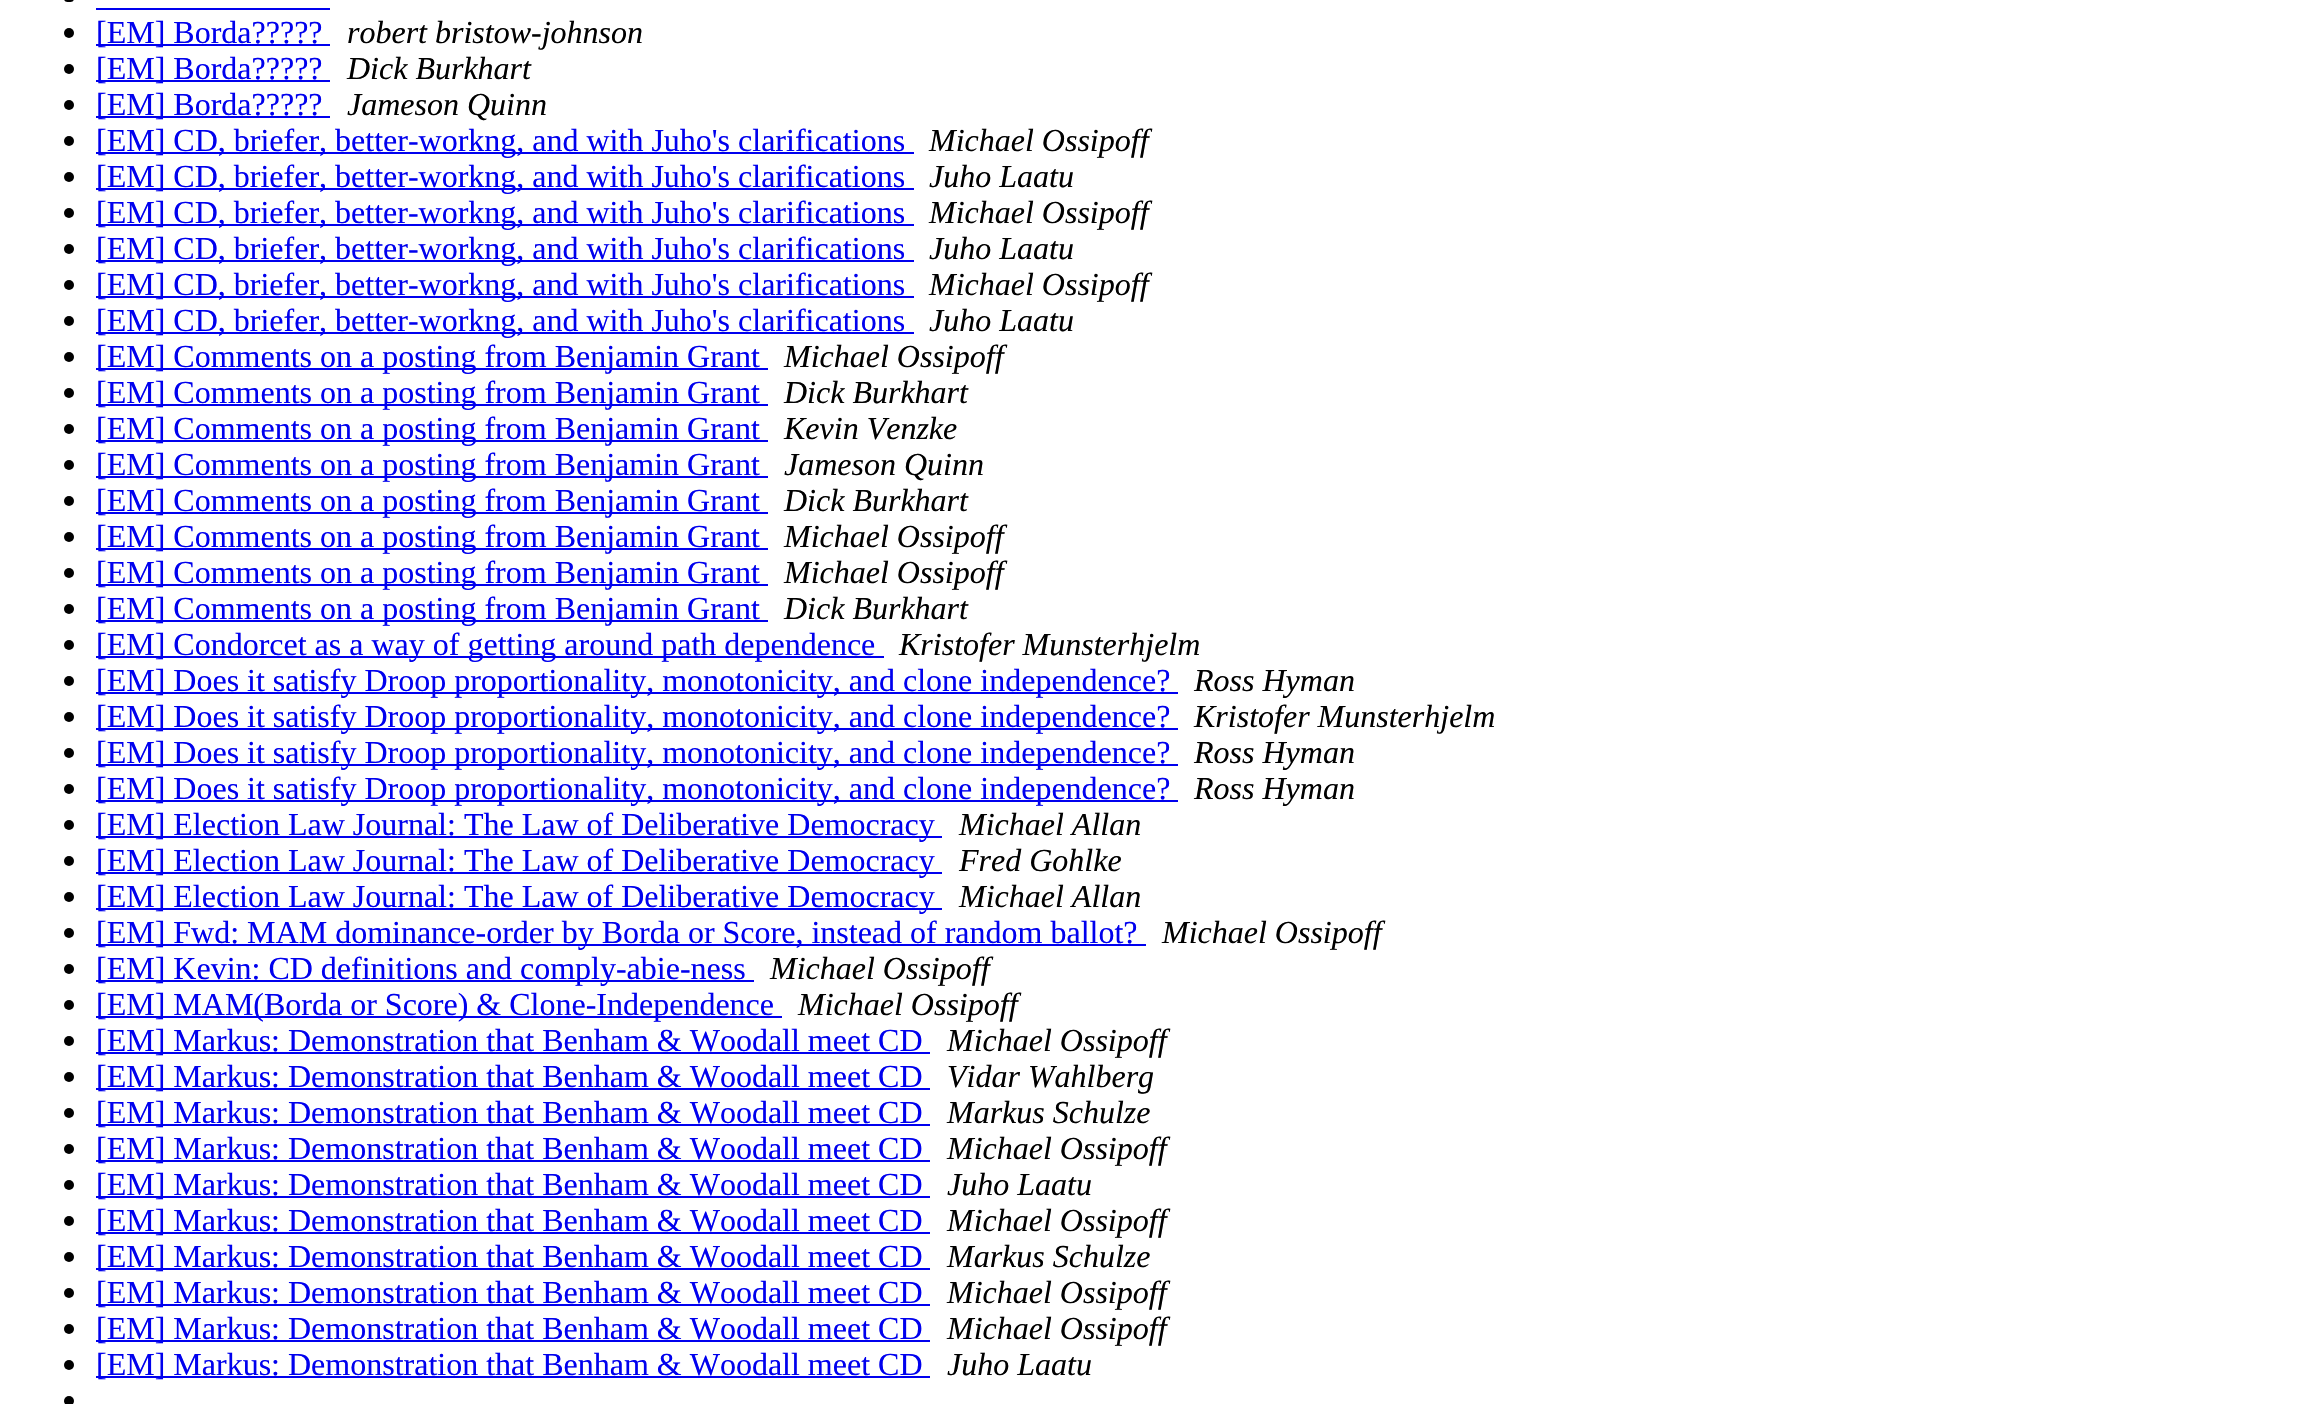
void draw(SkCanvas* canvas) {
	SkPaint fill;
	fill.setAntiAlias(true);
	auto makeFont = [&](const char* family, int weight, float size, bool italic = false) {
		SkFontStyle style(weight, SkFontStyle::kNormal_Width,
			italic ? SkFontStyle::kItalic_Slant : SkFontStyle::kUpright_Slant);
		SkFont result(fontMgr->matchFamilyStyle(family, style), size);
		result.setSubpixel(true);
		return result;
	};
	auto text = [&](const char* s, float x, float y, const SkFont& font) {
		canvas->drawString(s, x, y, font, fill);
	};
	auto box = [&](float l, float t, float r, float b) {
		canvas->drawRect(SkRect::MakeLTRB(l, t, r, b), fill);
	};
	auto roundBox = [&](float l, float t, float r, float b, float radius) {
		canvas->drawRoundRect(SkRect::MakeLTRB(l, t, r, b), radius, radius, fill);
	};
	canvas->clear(0xFFFFFFFF);
	fill.setColor(0xFF000000);
	roundBox(64, -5, 74, 2, 5);
	fill.setColor(0xFF0000EE);
	box(96, 8, 330, 10);
	fill.setColor(0xFF000000);
	canvas->drawCircle(69, 33, 5, fill);
	fill.setColor(0xFF0000EE);
	box(96, 44, 330, 46);
	fill.setColor(0xFF000000);
	canvas->drawCircle(69, 69, 5, fill);
	fill.setColor(0xFF0000EE);
	box(96, 80, 330, 82);
	fill.setColor(0xFF000000);
	canvas->drawCircle(69, 105, 5, fill);
	fill.setColor(0xFF0000EE);
	box(96, 116, 330, 118);
	fill.setColor(0xFF000000);
	canvas->drawCircle(69, 141, 5, fill);
	fill.setColor(0xFF0000EE);
	box(96, 152, 914, 154);
	fill.setColor(0xFF000000);
	canvas->drawCircle(69, 177, 5, fill);
	fill.setColor(0xFF0000EE);
	box(96, 188, 914, 190);
	fill.setColor(0xFF000000);
	canvas->drawCircle(69, 213, 5, fill);
	fill.setColor(0xFF0000EE);
	box(96, 224, 914, 226);
	fill.setColor(0xFF000000);
	canvas->drawCircle(69, 249, 5, fill);
	fill.setColor(0xFF0000EE);
	box(96, 260, 914, 262);
	fill.setColor(0xFF000000);
	canvas->drawCircle(69, 285, 5, fill);
	fill.setColor(0xFF0000EE);
	box(96, 296, 914, 298);
	fill.setColor(0xFF000000);
	canvas->drawCircle(69, 321, 5, fill);
	fill.setColor(0xFF0000EE);
	box(96, 332, 914, 334);
	fill.setColor(0xFF000000);
	canvas->drawCircle(69, 357, 5, fill);
	fill.setColor(0xFF0000EE);
	box(96, 368, 768, 370);
	fill.setColor(0xFF000000);
	canvas->drawCircle(69, 393, 5, fill);
	fill.setColor(0xFF0000EE);
	box(96, 404, 768, 406);
	fill.setColor(0xFF000000);
	canvas->drawCircle(69, 429, 5, fill);
	fill.setColor(0xFF0000EE);
	box(96, 440, 768, 442);
	fill.setColor(0xFF000000);
	canvas->drawCircle(69, 465, 5, fill);
	fill.setColor(0xFF0000EE);
	box(96, 476, 768, 478);
	fill.setColor(0xFF000000);
	canvas->drawCircle(69, 501, 5, fill);
	fill.setColor(0xFF0000EE);
	box(96, 512, 768, 514);
	fill.setColor(0xFF000000);
	canvas->drawCircle(69, 537, 5, fill);
	fill.setColor(0xFF0000EE);
	box(96, 548, 768, 550);
	fill.setColor(0xFF000000);
	canvas->drawCircle(69, 573, 5, fill);
	fill.setColor(0xFF0000EE);
	box(96, 584, 768, 586);
	fill.setColor(0xFF000000);
	canvas->drawCircle(69, 609, 5, fill);
	fill.setColor(0xFF0000EE);
	box(96, 620, 768, 622);
	fill.setColor(0xFF000000);
	canvas->drawCircle(69, 645, 5, fill);
	fill.setColor(0xFF0000EE);
	box(96, 656, 884, 658);
	fill.setColor(0xFF000000);
	canvas->drawCircle(69, 681, 5, fill);
	fill.setColor(0xFF0000EE);
	box(96, 692, 1178, 694);
	fill.setColor(0xFF000000);
	canvas->drawCircle(69, 717, 5, fill);
	fill.setColor(0xFF0000EE);
	box(96, 728, 1178, 730);
	fill.setColor(0xFF000000);
	canvas->drawCircle(69, 753, 5, fill);
	fill.setColor(0xFF0000EE);
	box(96, 764, 1178, 766);
	fill.setColor(0xFF000000);
	canvas->drawCircle(69, 789, 5, fill);
	fill.setColor(0xFF0000EE);
	box(96, 800, 1178, 802);
	fill.setColor(0xFF000000);
	canvas->drawCircle(69, 825, 5, fill);
	fill.setColor(0xFF0000EE);
	box(96, 836, 942, 838);
	fill.setColor(0xFF000000);
	canvas->drawCircle(69, 861, 5, fill);
	fill.setColor(0xFF0000EE);
	box(96, 872, 942, 874);
	fill.setColor(0xFF000000);
	canvas->drawCircle(69, 897, 5, fill);
	fill.setColor(0xFF0000EE);
	box(96, 908, 942, 910);
	fill.setColor(0xFF000000);
	canvas->drawCircle(69, 933, 5, fill);
	fill.setColor(0xFF0000EE);
	box(96, 944, 1146, 946);
	fill.setColor(0xFF000000);
	canvas->drawCircle(69, 969, 5, fill);
	fill.setColor(0xFF0000EE);
	box(96, 980, 754, 982);
	fill.setColor(0xFF000000);
	canvas->drawCircle(69, 1005, 5, fill);
	fill.setColor(0xFF0000EE);
	box(96, 1016, 782, 1018);
	fill.setColor(0xFF000000);
	canvas->drawCircle(69, 1041, 5, fill);
	fill.setColor(0xFF0000EE);
	box(96, 1052, 930, 1054);
	fill.setColor(0xFF000000);
	canvas->drawCircle(69, 1077, 5, fill);
	fill.setColor(0xFF0000EE);
	box(96, 1088, 930, 1090);
	fill.setColor(0xFF000000);
	canvas->drawCircle(69, 1113, 5, fill);
	fill.setColor(0xFF0000EE);
	box(96, 1124, 930, 1126);
	fill.setColor(0xFF000000);
	canvas->drawCircle(69, 1149, 5, fill);
	fill.setColor(0xFF0000EE);
	box(96, 1160, 930, 1162);
	fill.setColor(0xFF000000);
	canvas->drawCircle(69, 1185, 5, fill);
	fill.setColor(0xFF0000EE);
	box(96, 1196, 930, 1198);
	fill.setColor(0xFF000000);
	canvas->drawCircle(69, 1221, 5, fill);
	fill.setColor(0xFF0000EE);
	box(96, 1232, 930, 1234);
	fill.setColor(0xFF000000);
	canvas->drawCircle(69, 1257, 5, fill);
	fill.setColor(0xFF0000EE);
	box(96, 1268, 930, 1270);
	fill.setColor(0xFF000000);
	canvas->drawCircle(69, 1293, 5, fill);
	fill.setColor(0xFF0000EE);
	box(96, 1304, 930, 1306);
	fill.setColor(0xFF000000);
	canvas->drawCircle(69, 1329, 5, fill);
	fill.setColor(0xFF0000EE);
	box(96, 1340, 930, 1342);
	fill.setColor(0xFF000000);
	canvas->drawCircle(69, 1365, 5, fill);
	fill.setColor(0xFF0000EE);
	box(96, 1376, 930, 1378);
	fill.setColor(0xFF000000);
	canvas->drawCircle(69, 1401, 5, fill);
	auto font1 = makeFont("Liberation Serif", 400, 32);
	fill.setColor(0xFF0000EE);
	text("[EM] Borda?\077?\077?", 96, 43, font1);
	auto font2 = makeFont("Liberation Serif", 400, 32, true);
	fill.setColor(0xFF000000);
	text("robert bristow-johnson", 347, 43, font2);
	fill.setColor(0xFF0000EE);
	text("[EM] Borda?\077?\077?", 96, 79, font1);
	fill.setColor(0xFF000000);
	text("Dick Burkhart", 347, 79, font2);
	fill.setColor(0xFF0000EE);
	text("[EM] Borda?\077?\077?", 96, 115, font1);
	fill.setColor(0xFF000000);
	text("Jameson Quinn", 347, 115, font2);
	fill.setColor(0xFF0000EE);
	text("[EM] CD, briefer, better-workng, and with Juho's clarifications", 96, 151, font1);
	fill.setColor(0xFF000000);
	text("Michael Ossipoff", 929, 151, font2);
	fill.setColor(0xFF0000EE);
	text("[EM] CD, briefer, better-workng, and with Juho's clarifications", 96, 187, font1);
	fill.setColor(0xFF000000);
	text("Juho Laatu", 929, 187, font2);
	fill.setColor(0xFF0000EE);
	text("[EM] CD, briefer, better-workng, and with Juho's clarifications", 96, 223, font1);
	fill.setColor(0xFF000000);
	text("Michael Ossipoff", 929, 223, font2);
	fill.setColor(0xFF0000EE);
	text("[EM] CD, briefer, better-workng, and with Juho's clarifications", 96, 259, font1);
	fill.setColor(0xFF000000);
	text("Juho Laatu", 929, 259, font2);
	fill.setColor(0xFF0000EE);
	text("[EM] CD, briefer, better-workng, and with Juho's clarifications", 96, 295, font1);
	fill.setColor(0xFF000000);
	text("Michael Ossipoff", 929, 295, font2);
	fill.setColor(0xFF0000EE);
	text("[EM] CD, briefer, better-workng, and with Juho's clarifications", 96, 331, font1);
	fill.setColor(0xFF000000);
	text("Juho Laatu", 929, 331, font2);
	fill.setColor(0xFF0000EE);
	text("[EM] Comments on a posting from Benjamin Grant", 96, 367, font1);
	fill.setColor(0xFF000000);
	text("Michael Ossipoff", 784, 367, font2);
	fill.setColor(0xFF0000EE);
	text("[EM] Comments on a posting from Benjamin Grant", 96, 403, font1);
	fill.setColor(0xFF000000);
	text("Dick Burkhart", 784, 403, font2);
	fill.setColor(0xFF0000EE);
	text("[EM] Comments on a posting from Benjamin Grant", 96, 439, font1);
	fill.setColor(0xFF000000);
	text("Kevin Venzke", 784, 439, font2);
	fill.setColor(0xFF0000EE);
	text("[EM] Comments on a posting from Benjamin Grant", 96, 475, font1);
	fill.setColor(0xFF000000);
	text("Jameson Quinn", 784, 475, font2);
	fill.setColor(0xFF0000EE);
	text("[EM] Comments on a posting from Benjamin Grant", 96, 511, font1);
	fill.setColor(0xFF000000);
	text("Dick Burkhart", 784, 511, font2);
	fill.setColor(0xFF0000EE);
	text("[EM] Comments on a posting from Benjamin Grant", 96, 547, font1);
	fill.setColor(0xFF000000);
	text("Michael Ossipoff", 784, 547, font2);
	fill.setColor(0xFF0000EE);
	text("[EM] Comments on a posting from Benjamin Grant", 96, 583, font1);
	fill.setColor(0xFF000000);
	text("Michael Ossipoff", 784, 583, font2);
	fill.setColor(0xFF0000EE);
	text("[EM] Comments on a posting from Benjamin Grant", 96, 619, font1);
	fill.setColor(0xFF000000);
	text("Dick Burkhart", 784, 619, font2);
	fill.setColor(0xFF0000EE);
	text("[EM] Condorcet as a way of getting around path dependence", 96, 655, font1);
	fill.setColor(0xFF000000);
	text("Kristofer Munsterhjelm", 899, 655, font2);
	fill.setColor(0xFF0000EE);
	text("[EM] Does it satisfy Droop proportionality, monotonicity, and clone independence?", 96, 691, font1);
	fill.setColor(0xFF000000);
	text("Ross Hyman", 1194, 691, font2);
	fill.setColor(0xFF0000EE);
	text("[EM] Does it satisfy Droop proportionality, monotonicity, and clone independence?", 96, 727, font1);
	fill.setColor(0xFF000000);
	text("Kristofer Munsterhjelm", 1194, 727, font2);
	fill.setColor(0xFF0000EE);
	text("[EM] Does it satisfy Droop proportionality, monotonicity, and clone independence?", 96, 763, font1);
	fill.setColor(0xFF000000);
	text("Ross Hyman", 1194, 763, font2);
	fill.setColor(0xFF0000EE);
	text("[EM] Does it satisfy Droop proportionality, monotonicity, and clone independence?", 96, 799, font1);
	fill.setColor(0xFF000000);
	text("Ross Hyman", 1194, 799, font2);
	fill.setColor(0xFF0000EE);
	text("[EM] Election Law Journal: The Law of Deliberative Democracy", 96, 835, font1);
	fill.setColor(0xFF000000);
	text("Michael Allan", 959, 835, font2);
	fill.setColor(0xFF0000EE);
	text("[EM] Election Law Journal: The Law of Deliberative Democracy", 96, 871, font1);
	fill.setColor(0xFF000000);
	text("Fred Gohlke", 959, 871, font2);
	fill.setColor(0xFF0000EE);
	text("[EM] Election Law Journal: The Law of Deliberative Democracy", 96, 907, font1);
	fill.setColor(0xFF000000);
	text("Michael Allan", 959, 907, font2);
	fill.setColor(0xFF0000EE);
	text("[EM] Fwd: MAM dominance-order by Borda or Score, instead of random ballot?", 96, 943, font1);
	fill.setColor(0xFF000000);
	text("Michael Ossipoff", 1162, 943, font2);
	fill.setColor(0xFF0000EE);
	text("[EM] Kevin: CD definitions and comply-abie-ness", 96, 979, font1);
	fill.setColor(0xFF000000);
	text("Michael Ossipoff", 770, 979, font2);
	fill.setColor(0xFF0000EE);
	text("[EM] MAM(Borda or Score) & Clone-Independence", 96, 1015, font1);
	fill.setColor(0xFF000000);
	text("Michael Ossipoff", 798, 1015, font2);
	fill.setColor(0xFF0000EE);
	text("[EM] Markus: Demonstration that Benham & Woodall meet CD", 96, 1051, font1);
	fill.setColor(0xFF000000);
	text("Michael Ossipoff", 947, 1051, font2);
	fill.setColor(0xFF0000EE);
	text("[EM] Markus: Demonstration that Benham & Woodall meet CD", 96, 1087, font1);
	fill.setColor(0xFF000000);
	text("Vidar Wahlberg", 947, 1087, font2);
	fill.setColor(0xFF0000EE);
	text("[EM] Markus: Demonstration that Benham & Woodall meet CD", 96, 1123, font1);
	fill.setColor(0xFF000000);
	text("Markus Schulze", 947, 1123, font2);
	fill.setColor(0xFF0000EE);
	text("[EM] Markus: Demonstration that Benham & Woodall meet CD", 96, 1159, font1);
	fill.setColor(0xFF000000);
	text("Michael Ossipoff", 947, 1159, font2);
	fill.setColor(0xFF0000EE);
	text("[EM] Markus: Demonstration that Benham & Woodall meet CD", 96, 1195, font1);
	fill.setColor(0xFF000000);
	text("Juho Laatu", 947, 1195, font2);
	fill.setColor(0xFF0000EE);
	text("[EM] Markus: Demonstration that Benham & Woodall meet CD", 96, 1231, font1);
	fill.setColor(0xFF000000);
	text("Michael Ossipoff", 947, 1231, font2);
	fill.setColor(0xFF0000EE);
	text("[EM] Markus: Demonstration that Benham & Woodall meet CD", 96, 1267, font1);
	fill.setColor(0xFF000000);
	text("Markus Schulze", 947, 1267, font2);
	fill.setColor(0xFF0000EE);
	text("[EM] Markus: Demonstration that Benham & Woodall meet CD", 96, 1303, font1);
	fill.setColor(0xFF000000);
	text("Michael Ossipoff", 947, 1303, font2);
	fill.setColor(0xFF0000EE);
	text("[EM] Markus: Demonstration that Benham & Woodall meet CD", 96, 1339, font1);
	fill.setColor(0xFF000000);
	text("Michael Ossipoff", 947, 1339, font2);
	fill.setColor(0xFF0000EE);
	text("[EM] Markus: Demonstration that Benham & Woodall meet CD", 96, 1375, font1);
	fill.setColor(0xFF000000);
	text("Juho Laatu", 947, 1375, font2);
}
